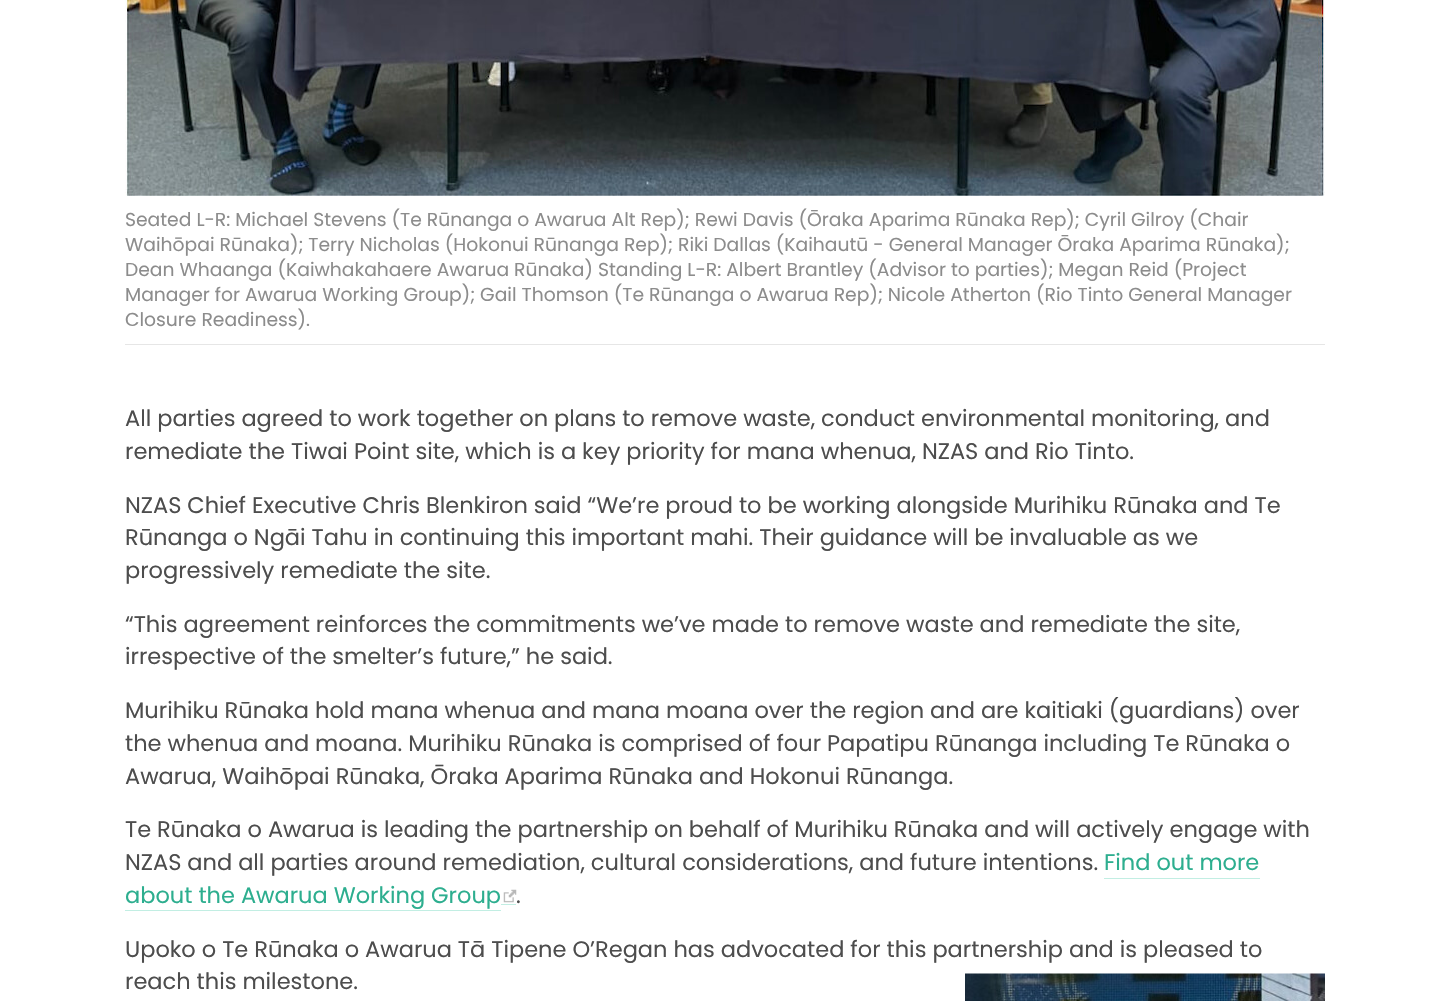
void draw(SkCanvas* canvas) {
	SkPaint fill;
	fill.setAntiAlias(true);
	auto makeFont = [&](const char* family, int weight, float size, bool italic = false) {
		SkFontStyle style(weight, SkFontStyle::kNormal_Width,
			italic ? SkFontStyle::kItalic_Slant : SkFontStyle::kUpright_Slant);
		SkFont result(fontMgr->matchFamilyStyle(family, style), size);
		result.setSubpixel(true);
		return result;
	};
	auto text = [&](const char* s, float x, float y, const SkFont& font) {
		canvas->drawString(s, x, y, font, fill);
	};
	auto box = [&](float l, float t, float r, float b) {
		canvas->drawRect(SkRect::MakeLTRB(l, t, r, b), fill);
	};
	auto picture = [&](const char* path, float l, float t, float r, float b) {
		auto image = SkImages::DeferredFromEncodedData(SkData::MakeFromFileName(path));
		canvas->drawImageRect(image, SkRect::MakeLTRB(l, t, r, b), SkSamplingOptions());
	};
	canvas->clear(0xFFFFFFFF);
	picture("image0.png", 125, 0, 1325, 196);
	fill.setColor(0xFFE6E6E6);
	box(125, 344, 1325, 345);
	fill.setColor(0xFFC2EEE3);
	box(1104, 878, 1260, 879);
	box(125, 910, 501, 911);
	box(501, 904, 516, 905);
	picture("image1.png", 503, 889, 517, 903);
	picture("image2.png", 965, 973, 1325, 1001);
	auto font1 = makeFont("Poppins", 400, 18.75f);
	fill.setColor(0xFF8C8C8C);
	text("Seated L-R: Michael Stevens (Te Rūnanga o Awarua Alt Rep); Rewi Davis (Ōraka Aparima Rūnaka Rep); Cyril Gilroy (Chair", 125, 226, font1);
	text("Waihōpai Rūnaka); Terry Nicholas (Hokonui Rūnanga Rep); Riki Dallas (Kaihautū - General Manager Ōraka Aparima Rūnaka);", 125, 251, font1);
	text("Dean Whaanga (Kaiwhakahaere Awarua Rūnaka) Standing L-R: Albert Brantley (Advisor to parties); Megan Reid (Project", 125, 276, font1);
	text("Manager for Awarua Working Group); Gail Thomson (Te Rūnanga o Awarua Rep); Nicole Atherton (Rio Tinto General Manager", 125, 301, font1);
	text("Closure Readiness).", 125, 326, font1);
	auto font2 = makeFont("Poppins", 400, 22.5f);
	fill.setColor(0xFF4D4D4D);
	text("All parties agreed to work together on plans to remove waste, conduct environmental monitoring, and", 125, 426, font2);
	text("remediate the Tiwai Point site, which is a key priority for mana whenua, NZAS and Rio Tinto.", 125, 459, font2);
	text("NZAS Chief Executive Chris Blenkiron said “We’re proud to be working alongside Murihiku Rūnaka and Te", 125, 513, font2);
	text("Rūnanga o Ngāi Tahu in continuing this important mahi. Their guidance will be invaluable as we", 125, 545, font2);
	text("progressively remediate the site.", 125, 578, font2);
	text("“This agreement reinforces the commitments we’ve made to remove waste and remediate the site,", 125, 632, font2);
	text("irrespective of the smelter’s future,” he said.", 125, 664, font2);
	text("Murihiku Rūnaka hold mana whenua and mana moana over the region and are kaitiaki (guardians) over", 125, 718, font2);
	text("the whenua and moana. Murihiku Rūnaka is comprised of four Papatipu Rūnanga including Te Rūnaka o", 125, 751, font2);
	text("Awarua, Waihōpai Rūnaka, Ōraka Aparima Rūnaka and Hokonui Rūnanga.", 125, 784, font2);
	text("Te Rūnaka o Awarua is leading the partnership on behalf of Murihiku Rūnaka and will actively engage with", 125, 837, font2);
	fill.setColor(0xFF2DAE8F);
	text("Find out more", 1104, 870, font2);
	text("about the Awarua Working Group", 125, 903, font2);
	fill.setColor(0xFF4D4D4D);
	text("NZAS and all parties around remediation, cultural considerations, and future intentions.", 125, 870, font2);
	text(".", 516, 903, font2);
	text("Upoko o Te Rūnaka o Awarua Tā Tipene O’Regan has advocated for this partnership and is pleased to", 125, 957, font2);
	text("reach this milestone.", 125, 989, font2);
}
